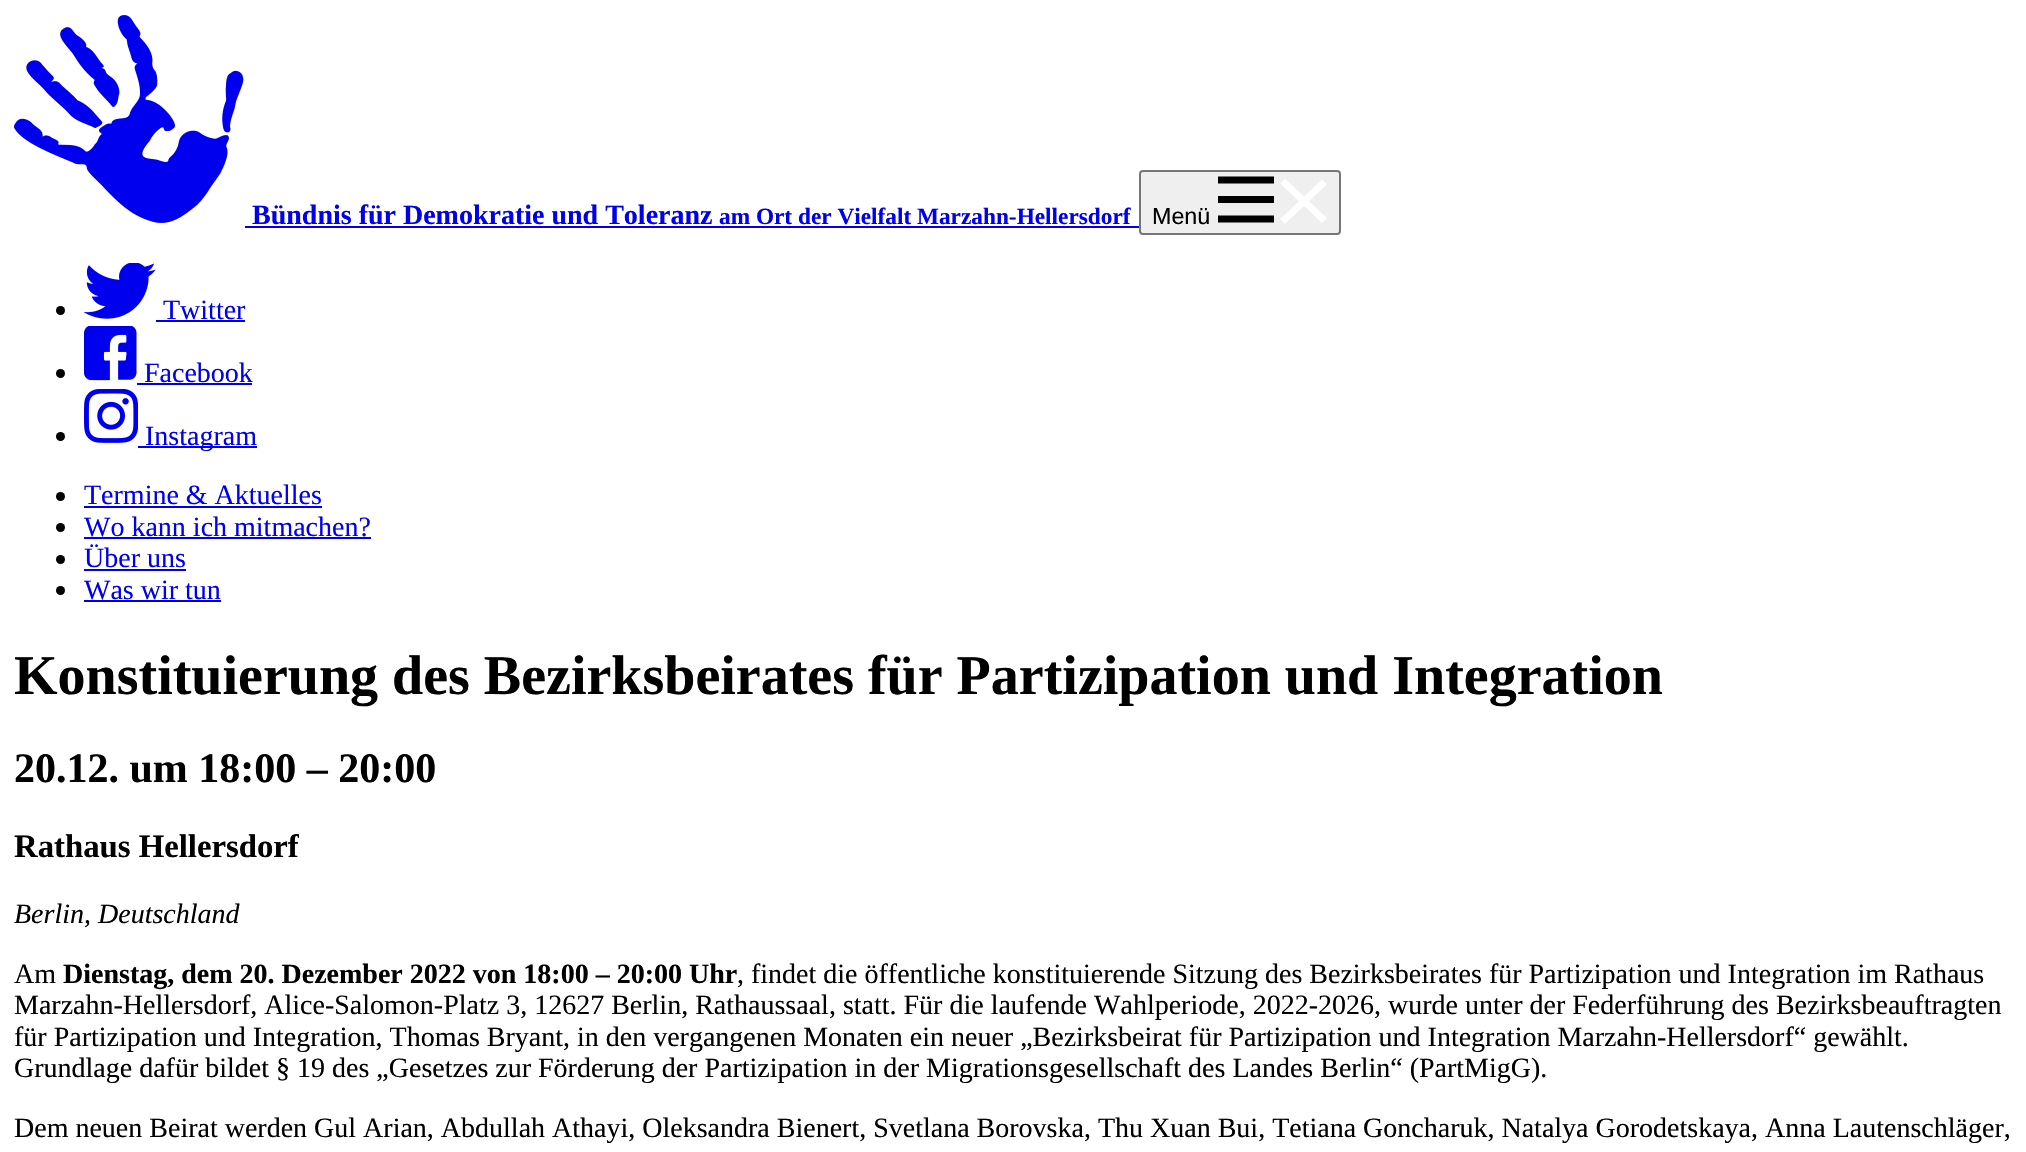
void draw(SkCanvas* canvas) {
	SkPaint fill;
	fill.setAntiAlias(true);
	auto makeFont = [&](const char* family, int weight, float size, bool italic = false) {
		SkFontStyle style(weight, SkFontStyle::kNormal_Width,
			italic ? SkFontStyle::kItalic_Slant : SkFontStyle::kUpright_Slant);
		SkFont result(fontMgr->matchFamilyStyle(family, style), size);
		result.setSubpixel(true);
		return result;
	};
	auto text = [&](const char* s, float x, float y, const SkFont& font) {
		canvas->drawString(s, x, y, font, fill);
	};
	auto box = [&](float l, float t, float r, float b) {
		canvas->drawRect(SkRect::MakeLTRB(l, t, r, b), fill);
	};
	auto picture = [&](const char* path, float l, float t, float r, float b) {
		auto image = SkImages::DeferredFromEncodedData(SkData::MakeFromFileName(path));
		canvas->drawImageRect(image, SkRect::MakeLTRB(l, t, r, b), SkSamplingOptions());
	};
	canvas->clear(0xFFFFFFFF);
	picture("image0.png", 14, 15, 244, 223);
	fill.setColor(0xFF0000EE);
	box(245, 226, 1139, 228);
	fill.setColor(0xFFEFEFEF);
	canvas->drawRoundRect(SkRect::MakeLTRB(1140, 171, 1340, 234), 3, 3, fill);
	fill.setStyle(SkPaint::kStroke_Style);
	fill.setStrokeWidth(2);
	fill.setColor(0xFF767676);
	canvas->drawRoundRect(SkRect::MakeLTRB(1140, 171, 1340, 234), 3, 3, fill);
	fill.setStrokeWidth(7);
	fill.setColor(0xFF000000);
	canvas->drawPath(SkPathBuilder().moveTo(1218, 180).lineTo(1274, 180).moveTo(1218, 199.5f).lineTo(1274, 199.5f).moveTo(1218, 219).lineTo(1274, 219).detach(), fill);
	fill.setColor(0xFFFFFFFF);
	canvas->drawPath(SkPathBuilder().moveTo(1282.5f, 221.5f).lineTo(1324.5f, 182).moveTo(1324.5f, 220.5f).lineTo(1282.5f, 181).detach(), fill);
	fill.setStyle(SkPaint::kFill_Style);
	fill.setColor(0xFF000000);
	canvas->drawCircle(60.5f, 310.5f, 4.5f, fill);
	picture("image1.png", 84, 263, 156, 319);
	fill.setColor(0xFF0000EE);
	box(156, 320, 245, 322);
	fill.setColor(0xFF000000);
	canvas->drawCircle(60.5f, 373.5f, 4.5f, fill);
	picture("image2.png", 84, 326, 137, 381);
	fill.setColor(0xFF0000EE);
	box(137, 383, 252, 385);
	fill.setColor(0xFF000000);
	canvas->drawCircle(60.5f, 436.5f, 4.5f, fill);
	picture("image3.png", 84, 389, 138, 443);
	fill.setColor(0xFF0000EE);
	box(138, 446, 257, 448);
	fill.setColor(0xFF000000);
	canvas->drawCircle(60.5f, 496.5f, 4.5f, fill);
	fill.setColor(0xFF0000EE);
	box(84, 506, 322, 508);
	fill.setColor(0xFF000000);
	canvas->drawCircle(60.5f, 527.5f, 4.5f, fill);
	fill.setColor(0xFF0000EE);
	box(84, 537, 371, 539);
	fill.setColor(0xFF000000);
	canvas->drawCircle(60.5f, 559.5f, 4.5f, fill);
	fill.setColor(0xFF0000EE);
	box(84, 569, 186, 571);
	fill.setColor(0xFF000000);
	canvas->drawCircle(60.5f, 590.5f, 4.5f, fill);
	fill.setColor(0xFF0000EE);
	box(84, 600, 221, 602);
	auto font1 = makeFont("Liberation Serif", 700, 28);
	text("Bündnis für Demokratie und Toleranz", 252, 224, font1);
	auto font2 = makeFont("Liberation Serif", 700, 23.3f);
	text("am Ort der Vielfalt Marzahn-Hellersdorf", 719, 224, font2);
	auto font3 = makeFont("Liberation Sans", 400, 23.3f);
	fill.setColor(0xFF000000);
	text("Menü", 1152, 224, font3);
	auto font4 = makeFont("Liberation Serif", 400, 28);
	fill.setColor(0xFF0000EE);
	text("Twitter", 163, 319, font4);
	text("Facebook", 144, 382, font4);
	text("Instagram", 145, 445, font4);
	text("Termine & Aktuelles", 84, 504, font4);
	text("Wo kann ich mitmachen?", 84, 536, font4);
	text("Über uns", 84, 567, font4);
	text("Was wir tun", 84, 599, font4);
	auto font5 = makeFont("Liberation Serif", 700, 56);
	fill.setColor(0xFF000000);
	text("Konstituierung des Bezirksbeirates für Partizipation und Integration", 14, 694, font5);
	auto font6 = makeFont("Liberation Serif", 700, 42);
	text("20.12. um 18:00 – 20:00", 14, 782, font6);
	auto font7 = makeFont("Liberation Serif", 700, 32.75f);
	text("Rathaus Hellersdorf", 14, 857, font7);
	auto font8 = makeFont("Liberation Serif", 400, 28, true);
	text("Berlin, Deutschland", 14, 923, font8);
	text("Am", 14, 983, font4);
	text("Dienstag, dem 20. Dezember 2022 von 18:00 – 20:00 Uhr", 63, 983, font1);
	text(", findet die öffentliche konstituierende Sitzung des Bezirksbeirates für Partizipation und Integration im Rathaus", 737, 983, font4);
	text("Marzahn-Hellersdorf, Alice-Salomon-Platz 3, 12627 Berlin, Rathaussaal, statt. Für die laufende Wahlperiode, 2022-2026, wurde unter der Federführung des Bezirksbeauftragten", 14, 1014, font4);
	text("für Partizipation und Integration, Thomas Bryant, in den vergangenen Monaten ein neuer „Bezirksbeirat für Partizipation und Integration Marzahn-Hellersdorf“ gewählt.", 14, 1046, font4);
	text("Grundlage dafür bildet § 19 des „Gesetzes zur Förderung der Partizipation in der Migrationsgesellschaft des Landes Berlin“ (PartMigG).", 14, 1077, font4);
	text("Dem neuen Beirat werden Gul Arian, Abdullah Athayi, Oleksandra Bienert, Svetlana Borovska, Thu Xuan Bui, Tetiana Goncharuk, Natalya Gorodetskaya, Anna Lautenschläger,", 14, 1137, font4);
}
